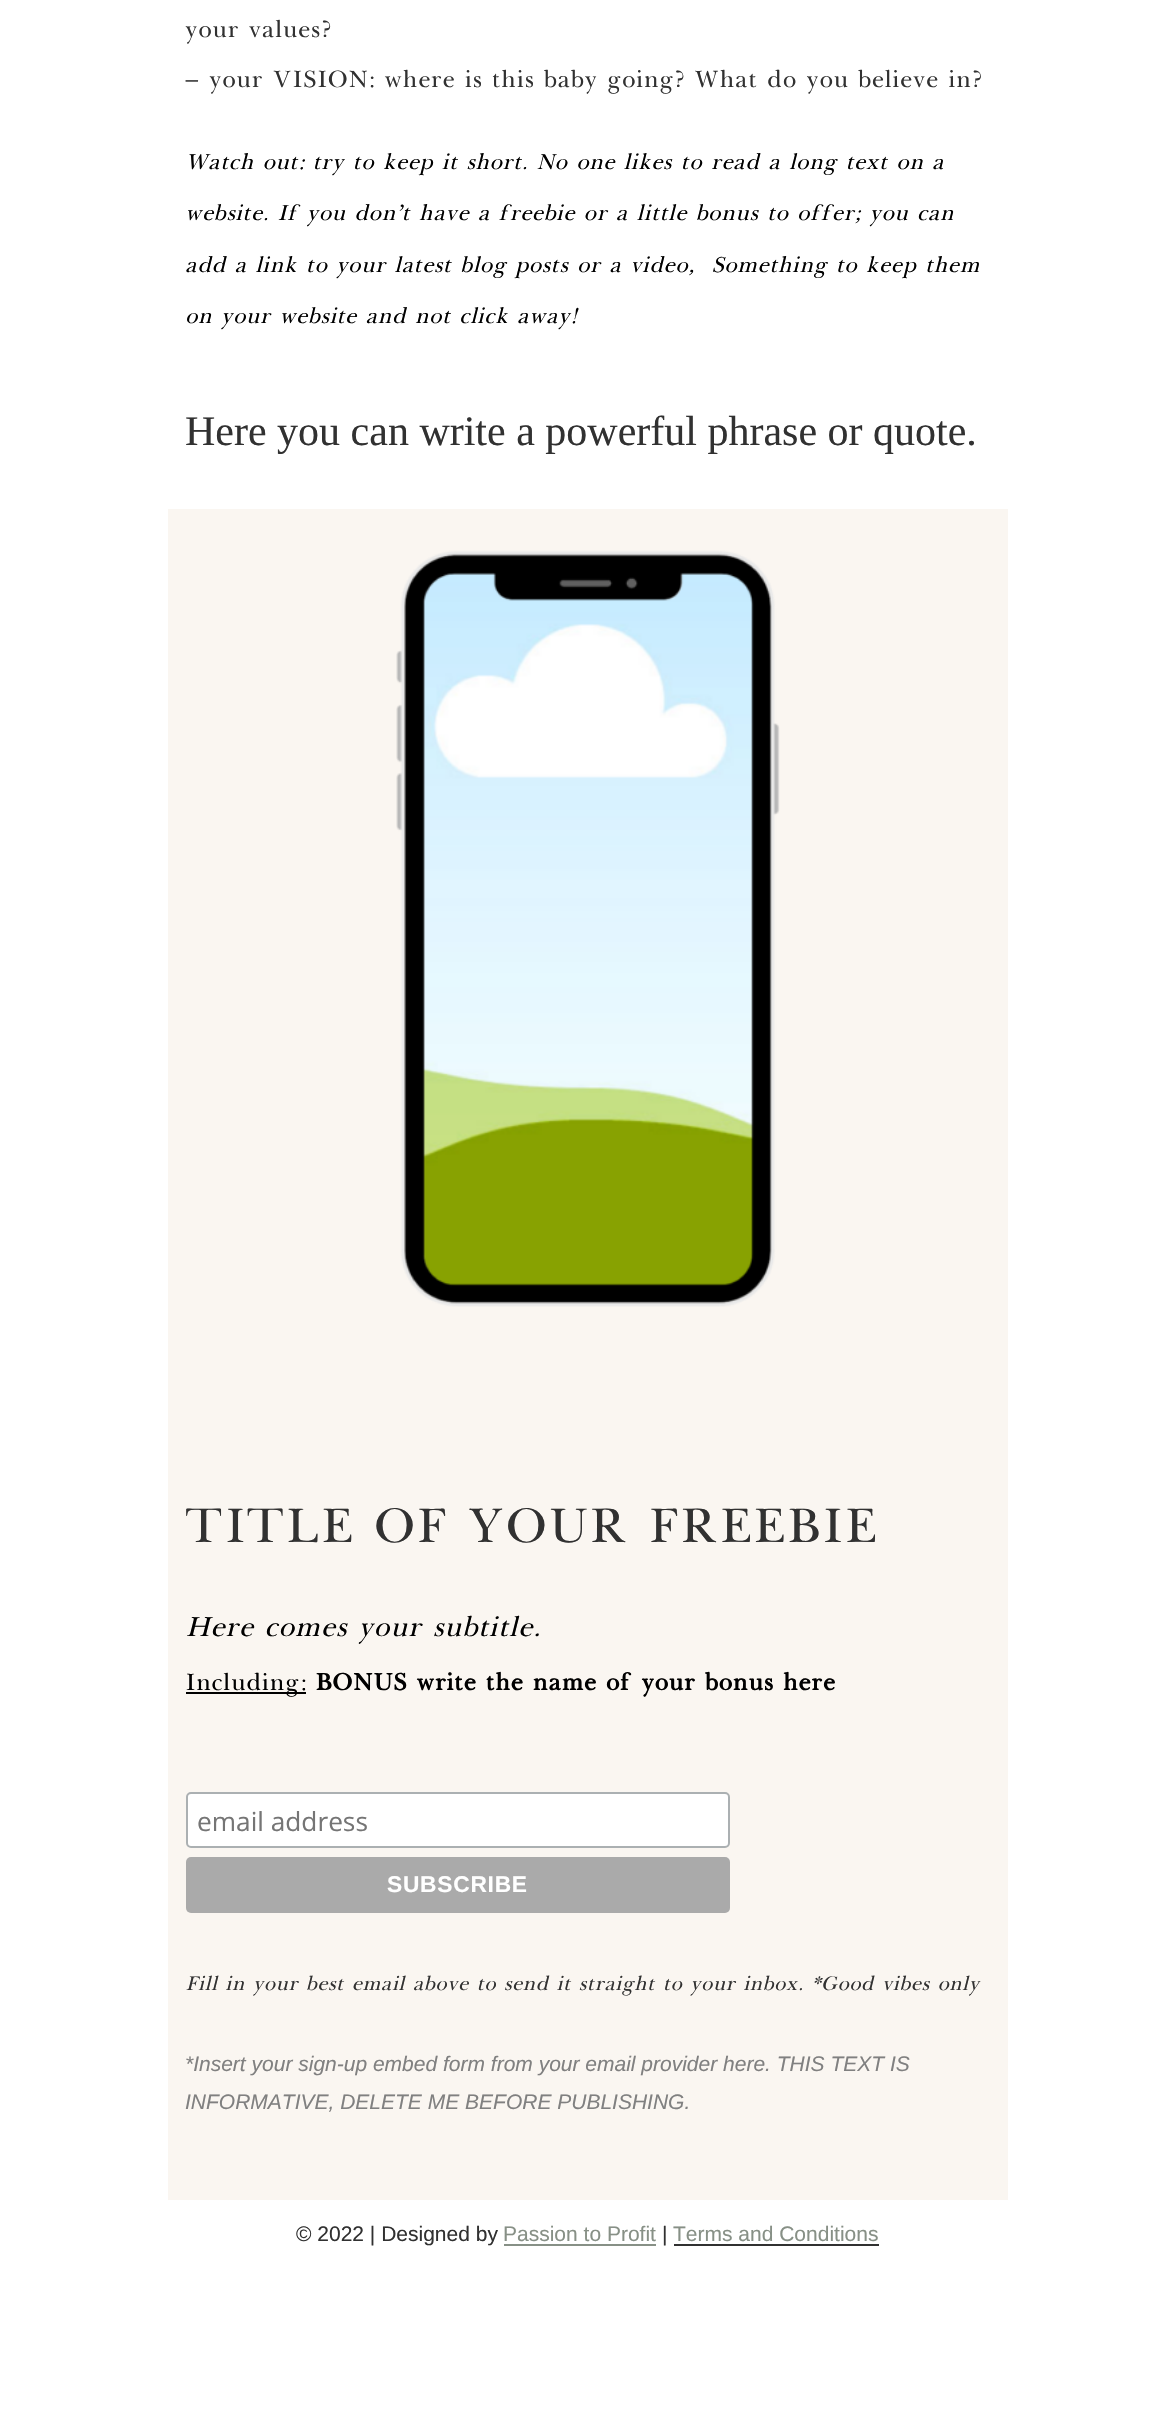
void draw(SkCanvas* canvas) {
	SkPaint fill;
	fill.setAntiAlias(true);
	auto makeFont = [&](const char* family, int weight, float size, bool italic = false) {
		SkFontStyle style(weight, SkFontStyle::kNormal_Width,
			italic ? SkFontStyle::kItalic_Slant : SkFontStyle::kUpright_Slant);
		SkFont result(fontMgr->matchFamilyStyle(family, style), size);
		result.setSubpixel(true);
		return result;
	};
	auto text = [&](const char* s, float x, float y, const SkFont& font) {
		canvas->drawString(s, x, y, font, fill);
	};
	auto spacedText = [&](const char* s, float x, float y, const SkFont& font, const SkPaint& ink, float letter, float word) {
		std::vector<SkGlyphID> glyphs(font.countText(s, strlen(s), SkTextEncoding::kUTF8));
		std::vector<float> xs(glyphs.size());
		font.textToGlyphs(s, strlen(s), SkTextEncoding::kUTF8, glyphs);
		font.getXPos(glyphs, xs, x);
		float extra = 0;
		for (size_t i = 0; i < glyphs.size(); i++) {
			xs[i] += extra;
			extra += letter + word * (glyphs[i] == font.unicharToGlyph(' '));
		}
		canvas->drawTextBlob(SkTextBlob::MakeFromPosHGlyphs(glyphs, xs, y, font), 0, 0, ink);
	};
	auto box = [&](float l, float t, float r, float b) {
		canvas->drawRect(SkRect::MakeLTRB(l, t, r, b), fill);
	};
	auto roundBox = [&](float l, float t, float r, float b, float radius) {
		canvas->drawRoundRect(SkRect::MakeLTRB(l, t, r, b), radius, radius, fill);
	};
	auto picture = [&](const char* path, float l, float t, float r, float b) {
		auto image = SkImages::DeferredFromEncodedData(SkData::MakeFromFileName(path));
		canvas->drawImageRect(image, SkRect::MakeLTRB(l, t, r, b), SkSamplingOptions());
	};
	canvas->clear(0xFFFFFFFF);
	fill.setColor(0xFFFAF6F1);
	box(168, 509, 1008, 2200);
	picture("image0.png", 396, 550, 780, 1307);
	fill.setColor(0xFF000000);
	box(186, 1692, 306, 1694);
	fill.setColor(0xFFFFFFFF);
	canvas->drawRoundRect(SkRect::MakeLTRB(187, 1793, 729, 1847), 4, 4, fill);
	fill.setStyle(SkPaint::kStroke_Style);
	fill.setStrokeWidth(2);
	fill.setColor(0xFFABB0B2);
	canvas->drawRoundRect(SkRect::MakeLTRB(187, 1793, 729, 1847), 4, 4, fill);
	fill.setStyle(SkPaint::kFill_Style);
	fill.setColor(0xFFAAAAAA);
	roundBox(186, 1857, 730, 1913, 5);
	fill.setColor(0xFF879086);
	box(504, 2244, 656, 2246);
	fill.setColor(0xFF313131);
	box(674, 2244, 879, 2246);
	auto font1 = makeFont("Baskerville", 300, 28);
	text("your values?", 185, 37, font1);
	text("– your VISION: where is this baby going? What do you believe in?", 185, 87, font1);
	auto font2 = makeFont("Baskerville", 300, 25.7f, true);
	fill.setColor(0xFF000000);
	text("Watch out: try to keep it short. No one likes to read a long text on a", 185, 169, font2);
	text("website. If you don’t have a freebie or a little bonus to offer; you can", 185, 220, font2);
	text("add a link to your latest blog posts or a video,… Something to keep them", 185, 272, font2);
	text("on your website and not click away!", 185, 323, font2);
	auto font3 = makeFont("Liberation Serif", 400, 42);
	fill.setColor(0xFF313131);
	text("Here you can write a powerful phrase or quote.", 185, 445, font3);
	auto font4 = makeFont("Baskerville", 300, 57.75f);
	text("TITLE OF YOUR FREEBIE", 185, 1542, font4);
	auto font5 = makeFont("Baskerville", 300, 32.75f, true);
	fill.setColor(0xFF000000);
	text("Here comes your subtitle.", 185, 1636, font5);
	text("Including:", 185, 1690, font1);
	auto font6 = makeFont("Baskerville", 700, 28);
	text("BONUS write the name of your bonus here", 315, 1690, font6);
	auto font7 = makeFont("Open Sans", 400, 26.25f);
	fill.setColor(0xFF757575);
	text("email address", 197, 1831, font7);
	auto font8 = makeFont("Liberation Sans", 700, 22.75f);
	fill.setColor(0xFFFFFFFF);
	spacedText("SUBSCRIBE", 387, 1892, font8, fill, 0.75f, 0);
	auto font9 = makeFont("Baskerville", 300, 23.35f, true);
	fill.setColor(0xFF313131);
	text("Fill in your best email above to send it straight to your inbox. *Good vibes only", 185, 1990, font9);
	auto font10 = makeFont("Liberation Sans", 400, 21, true);
	fill.setColor(0xFF808080);
	text("*Insert your sign-up embed form from your email provider here. THIS TEXT IS", 185, 2071, font10);
	text("INFORMATIVE, DELETE ME BEFORE PUBLISHING.", 185, 2109, font10);
	auto font11 = makeFont("Liberation Sans", 400, 21);
	fill.setColor(0xFF313131);
	text("© 2022 | Designed by", 296, 2241, font11);
	fill.setColor(0xFF879086);
	text("Passion to Profit", 503, 2241, font11);
	fill.setColor(0xFF313131);
	text("|", 662, 2241, font11);
	fill.setColor(0xFF879086);
	text("Terms and Conditions", 673, 2241, font11);
}
